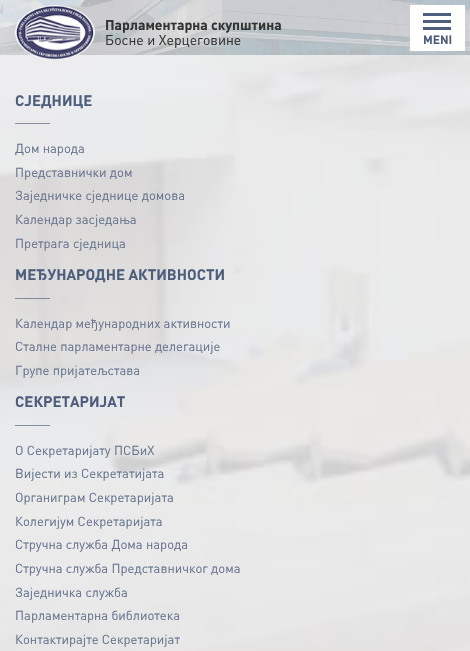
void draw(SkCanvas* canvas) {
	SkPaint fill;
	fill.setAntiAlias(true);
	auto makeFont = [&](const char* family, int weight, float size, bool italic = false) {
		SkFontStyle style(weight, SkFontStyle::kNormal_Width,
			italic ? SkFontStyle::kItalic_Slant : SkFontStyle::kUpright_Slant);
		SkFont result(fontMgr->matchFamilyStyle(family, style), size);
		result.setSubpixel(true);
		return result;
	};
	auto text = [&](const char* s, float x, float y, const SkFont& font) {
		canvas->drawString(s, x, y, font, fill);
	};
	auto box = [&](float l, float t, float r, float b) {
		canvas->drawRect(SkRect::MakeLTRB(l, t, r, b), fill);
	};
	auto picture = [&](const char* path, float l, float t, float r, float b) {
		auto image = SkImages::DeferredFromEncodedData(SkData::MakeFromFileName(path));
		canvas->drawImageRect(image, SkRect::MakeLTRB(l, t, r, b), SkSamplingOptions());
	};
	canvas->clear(0xFFFFFFFF);
	picture("image0.png", 0, 0, 470, 55);
	picture("image2.png", 0, 55, 470, 651);
	picture("image1.png", 15, 5, 95, 60);
	fill.setColor(0xFFFFFFFF);
	box(410, 5, 465, 51);
	fill.setColor(0xFF4D5E7D);
	box(423, 13, 451, 16);
	box(423, 20, 451, 23);
	box(423, 27, 451, 30);
	fill.setColor(0xFF848FA4);
	box(15, 123, 50, 124);
	fill.setColor(0xA64D5E7D);
	box(15, 298, 50, 299);
	fill.setColor(0xFF848FA4);
	box(15, 425, 50, 426);
	auto font1 = makeFont("DIN", 700, 14);
	fill.setColor(0xFF333333);
	text("Парламентарна скупштина", 105, 30, font1);
	auto font2 = makeFont("DIN", 400, 14);
	text("Босне и Херцеговине", 105, 45, font2);
	auto font3 = makeFont("DIN", 700, 12);
	fill.setColor(0xFF4D5E7D);
	text("MENI", 423, 44, font3);
	auto font4 = makeFont("DIN", 700, 15);
	text("СЈЕДНИЦЕ", 15, 106, font4);
	auto font5 = makeFont("DIN", 400, 13);
	fill.setColor(0xFF65738E);
	text("Дом народа", 15, 153, font5);
	text("Представнички дом", 15, 177, font5);
	text("Заједничке сједнице домова", 15, 200, font5);
	text("Календар засједања", 15, 224, font5);
	text("Претрага сједница", 15, 248, font5);
	fill.setColor(0xFF4D5E7D);
	text("МЕЂУНАРОДНЕ АКТИВНОСТИ", 15, 280, font4);
	fill.setColor(0xFF65738E);
	text("Календар међународних активности", 15, 328, font5);
	text("Сталне парламентарне делегације", 15, 351, font5);
	text("Групе пријатељстава", 15, 375, font5);
	fill.setColor(0xFF4D5E7D);
	text("СЕКРЕТАРИЈАТ", 15, 407, font4);
	fill.setColor(0xFF65738E);
	text("О Секретаријату ПСБиХ", 15, 455, font5);
	text("Вијести из Секретатијата", 15, 478, font5);
	text("Органиграм Секретаријата", 15, 502, font5);
	text("Колегијум Секретаријата", 15, 526, font5);
	text("Стручна служба Дома народа", 15, 549, font5);
	text("Стручна служба Представничког дома", 15, 573, font5);
	text("Заједничка служба", 15, 597, font5);
	text("Парламентарна библиотека", 15, 620, font5);
	text("Контактирајте Секретаријат", 15, 644, font5);
}
